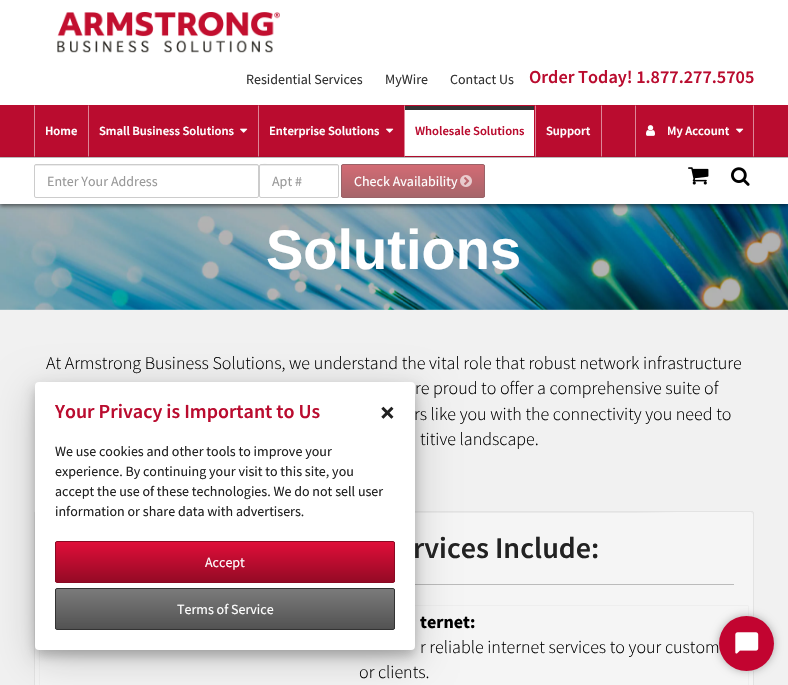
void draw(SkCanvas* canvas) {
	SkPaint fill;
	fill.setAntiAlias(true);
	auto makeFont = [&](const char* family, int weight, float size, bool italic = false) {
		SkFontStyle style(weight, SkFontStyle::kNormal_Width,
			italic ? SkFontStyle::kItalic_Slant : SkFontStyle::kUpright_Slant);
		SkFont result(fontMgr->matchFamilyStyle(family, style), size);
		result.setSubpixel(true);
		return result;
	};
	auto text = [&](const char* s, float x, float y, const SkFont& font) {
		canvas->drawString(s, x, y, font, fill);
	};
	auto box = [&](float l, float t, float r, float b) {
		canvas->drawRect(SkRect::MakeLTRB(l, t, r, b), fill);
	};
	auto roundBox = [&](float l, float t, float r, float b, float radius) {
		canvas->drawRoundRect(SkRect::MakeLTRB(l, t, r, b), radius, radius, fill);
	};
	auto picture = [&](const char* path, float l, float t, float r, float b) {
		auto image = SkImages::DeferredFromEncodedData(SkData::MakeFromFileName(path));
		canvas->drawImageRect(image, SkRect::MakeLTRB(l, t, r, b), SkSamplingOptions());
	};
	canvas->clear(0xFFF1F1F1);
	fill.setColor(0xFFFFFFFF);
	box(0, 0, 788, 204);
	picture("image0.png", 57, 12, 280, 53);
	fill.setColor(0xFFBA0C2F);
	box(0, 105, 788, 157);
	fill.setColor(0xFFDD8697);
	canvas->drawPath(SkPathBuilder().moveTo(34, 157).lineTo(34, 105).lineTo(35, 106).lineTo(35, 156).close().detach(), fill);
	canvas->drawPath(SkPathBuilder().moveTo(88, 157).lineTo(88, 105).lineTo(89, 106).lineTo(89, 156).close().detach(), fill);
	picture("image1.png", 240, 128, 248, 133);
	canvas->drawPath(SkPathBuilder().moveTo(258, 157).lineTo(258, 105).lineTo(259, 106).lineTo(259, 156).close().detach(), fill);
	picture("image1.png", 386, 128, 394, 133);
	canvas->drawPath(SkPathBuilder().moveTo(404, 157).lineTo(404, 105).lineTo(405, 106).lineTo(405, 156).close().detach(), fill);
	fill.setColor(0xFFFFFFFF);
	box(405, 110, 534, 156);
	fill.setColor(0xFF333333);
	box(405, 106, 534, 110);
	fill.setColor(0xFFDD8697);
	canvas->drawPath(SkPathBuilder().moveTo(602, 105).lineTo(602, 157).lineTo(601, 156).lineTo(601, 106).close().detach(), fill);
	canvas->drawPath(SkPathBuilder().moveTo(535, 157).lineTo(535, 105).lineTo(536, 106).lineTo(536, 156).close().detach(), fill);
	canvas->drawPath(SkPathBuilder().moveTo(754, 105).lineTo(754, 157).lineTo(753, 156).lineTo(753, 106).close().detach(), fill);
	canvas->drawPath(SkPathBuilder().moveTo(635, 157).lineTo(635, 105).lineTo(636, 106).lineTo(636, 156).close().detach(), fill);
	picture("image2.png", 646, 125, 655, 136);
	picture("image1.png", 736, 128, 744, 133);
	picture("image6.png", 0, 204, 788, 310);
	canvas->save();
	canvas->clipPath(SkPathBuilder(SkPathFillType::kEvenOdd).moveTo(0, 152).lineTo(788, 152).lineTo(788, 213).lineTo(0, 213).close().moveTo(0, 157).lineTo(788, 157).lineTo(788, 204).lineTo(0, 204).close().detach(), true);
	fill.setColor(0x80000000);
	fill.setMaskFilter(SkMaskFilter::MakeBlur(kNormal_SkBlurStyle, 2));
	canvas->drawRect(SkRect::MakeLTRB(0, 159, 788, 206), fill);
	fill.setMaskFilter(nullptr);
	canvas->restore();
	fill.setColor(0xFFBBBBBB);
	box(0, 157, 788, 158);
	fill.setColor(0xFFECECEC);
	canvas->drawPath(SkPathBuilder().moveTo(36, 166).lineTo(258, 166).lineTo(258, 167).lineTo(258, 165).lineTo(36, 165).cubicTo(35, 165, 35, 166, 35, 167).cubicTo(35, 166, 35, 166, 36, 166).close().detach(), fill);
	fill.setStyle(SkPaint::kStroke_Style);
	fill.setStrokeWidth(1);
	fill.setColor(0xFFCCCCCC);
	canvas->drawRoundRect(SkRect::MakeLTRB(34.5f, 164.5f, 258.5f, 197.5f), 1.5f, 1.5f, fill);
	fill.setStyle(SkPaint::kFill_Style);
	fill.setColor(0xFFECECEC);
	canvas->drawPath(SkPathBuilder().moveTo(261, 166).lineTo(338, 166).lineTo(338, 167).cubicTo(338, 166, 338, 165, 337, 165).lineTo(274, 165).cubicTo(271, 165, 260, 161, 260, 167).cubicTo(260, 166, 260, 166, 261, 166).close().detach(), fill);
	fill.setStyle(SkPaint::kStroke_Style);
	fill.setColor(0xFFCCCCCC);
	canvas->drawRoundRect(SkRect::MakeLTRB(259.5f, 164.5f, 338.5f, 197.5f), 1.5f, 1.5f, fill);
	canvas->save();
	canvas->clipPath(SkPathBuilder().moveTo(343, 164).lineTo(483, 164).cubicTo(484, 164, 485, 165, 485, 166).lineTo(485, 196).cubicTo(485, 197, 484, 198, 483, 198).lineTo(343, 198).cubicTo(342, 198, 341, 197, 341, 196).lineTo(341, 166).cubicTo(341, 165, 342, 164, 343, 164).close().detach(), true);
	fill.setStyle(SkPaint::kFill_Style);
	{
		const SkColor colors[] = {0xFFD36B74, 0xFFA6656A};
		const float stops[] = {0, 1};
		const SkPoint ends[] = {{413, 165}, {413, 197}};
		fill.setShader(SkGradientShader::MakeLinear(ends, colors, stops, 2, SkTileMode::kClamp));
		fill.setAlpha(255);
	}
	box(341, 165, 485, 197);
	canvas->restore();
	fill.setStyle(SkPaint::kStroke_Style);
	fill.setShader(nullptr);
	fill.setColor(0xFF9A6368);
	canvas->drawRoundRect(SkRect::MakeLTRB(341.5f, 164.5f, 484.5f, 197.5f), 1.5f, 1.5f, fill);
	picture("image3.png", 460, 175, 472, 187);
	picture("image4.png", 688, 167, 709, 185);
	picture("image5.png", 731, 167, 750, 186);
	fill.setStyle(SkPaint::kFill_Style);
	fill.setColor(0xFFF5F5F5);
	roundBox(34, 511, 754, 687, 2);
	fill.setColor(0xFFE9E9E9);
	canvas->drawPath(SkPathBuilder(SkPathFillType::kEvenOdd).moveTo(36, 513).lineTo(35, 514).cubicTo(35, 513, 35, 512, 36, 512).lineTo(677, 512).lineTo(633, 513).close().moveTo(751, 512).lineTo(753, 514).cubicTo(753, 512, 752, 512, 751, 512).close().detach(), fill);
	fill.setStyle(SkPaint::kStroke_Style);
	fill.setColor(0xFFE3E3E3);
	canvas->drawRoundRect(SkRect::MakeLTRB(34.5f, 511.5f, 753.5f, 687.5f), 1.5f, 1.5f, fill);
	fill.setStyle(SkPaint::kFill_Style);
	fill.setColor(0xFFBBBBBB);
	box(415, 584, 734, 585);
	fill.setStyle(SkPaint::kStroke_Style);
	fill.setColor(0xFFEEEEEE);
	canvas->drawRoundRect(SkRect::MakeLTRB(39.5f, 605.5f, 748.5f, 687.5f), 1, 1, fill);
	fill.setStyle(SkPaint::kFill_Style);
	fill.setColor(0x30000000);
	fill.setMaskFilter(SkMaskFilter::MakeBlur(kNormal_SkBlurStyle, 20));
	canvas->drawRoundRect(SkRect::MakeLTRB(35, 392, 415, 660), 4, 4, fill);
	fill.setMaskFilter(nullptr);
	fill.setColor(0x3B000000);
	fill.setMaskFilter(SkMaskFilter::MakeBlur(kNormal_SkBlurStyle, 6));
	canvas->drawRoundRect(SkRect::MakeLTRB(35, 388, 415, 656), 4, 4, fill);
	fill.setMaskFilter(nullptr);
	fill.setColor(0xFFFFFFFF);
	roundBox(35, 382, 415, 650, 4);
	canvas->save();
	canvas->clipPath(SkPathBuilder().moveTo(57, 541).lineTo(393, 541).cubicTo(394, 541, 395, 542, 395, 543).lineTo(395, 581).cubicTo(395, 582, 394, 583, 393, 583).lineTo(57, 583).cubicTo(56, 583, 55, 582, 55, 581).lineTo(55, 543).cubicTo(55, 542, 56, 541, 57, 541).close().detach(), true);
	{
		const SkColor colors[] = {0xFFE00E39, 0xFF940A25};
		const float stops[] = {0, 1};
		const SkPoint ends[] = {{225, 542}, {225, 582}};
		fill.setShader(SkGradientShader::MakeLinear(ends, colors, stops, 2, SkTileMode::kClamp));
		fill.setAlpha(255);
	}
	box(55, 542, 395, 582);
	canvas->restore();
	fill.setStyle(SkPaint::kStroke_Style);
	fill.setShader(nullptr);
	fill.setColor(0xFF8A0923);
	canvas->drawRoundRect(SkRect::MakeLTRB(55.5f, 541.5f, 394.5f, 582.5f), 1.5f, 1.5f, fill);
	canvas->save();
	canvas->clipPath(SkPathBuilder().moveTo(57, 588).lineTo(393, 588).cubicTo(394, 588, 395, 589, 395, 590).lineTo(395, 628).cubicTo(395, 629, 394, 630, 393, 630).lineTo(57, 630).cubicTo(56, 630, 55, 629, 55, 628).lineTo(55, 590).cubicTo(55, 589, 56, 588, 57, 588).close().detach(), true);
	fill.setStyle(SkPaint::kFill_Style);
	{
		const SkColor colors[] = {0xFF7A7A7A, 0xFF525252};
		const float stops[] = {0, 1};
		const SkPoint ends[] = {{225, 589}, {225, 629}};
		fill.setShader(SkGradientShader::MakeLinear(ends, colors, stops, 2, SkTileMode::kClamp));
		fill.setAlpha(255);
	}
	box(55, 589, 395, 629);
	canvas->restore();
	fill.setStyle(SkPaint::kStroke_Style);
	fill.setShader(nullptr);
	fill.setColor(0xFF333333);
	canvas->drawRoundRect(SkRect::MakeLTRB(55.5f, 588.5f, 394.5f, 629.5f), 1.5f, 1.5f, fill);
	fill.setStyle(SkPaint::kFill_Style);
	fill.setColor(0x4D000000);
	fill.setMaskFilter(SkMaskFilter::MakeBlur(kNormal_SkBlurStyle, 4));
	canvas->drawRoundRect(SkRect::MakeLTRB(719, 616, 774, 671), 27.5f, 27.5f, fill);
	fill.setMaskFilter(nullptr);
	fill.setColor(0xFFC20430);
	canvas->drawCircle(746.5f, 643.5f, 27.5f, fill);
	picture("image7.png", 735, 632, 759, 654);
	auto font1 = makeFont("Source Sans Pro", 400, 14);
	fill.setColor(0xFF333333);
	text("Residential Services", 246, 84, font1);
	text("MyWire", 385, 84, font1);
	text("Contact Us", 450, 84, font1);
	auto font2 = makeFont("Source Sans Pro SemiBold", 600, 18.25f);
	fill.setColor(0xFFBA0C2F);
	text("Order Today! 1.877.277.5705", 529, 83, font2);
	auto font3 = makeFont("Source Sans Pro SemiBold", 600, 12.6f);
	fill.setColor(0xFFFFFFFF);
	text("Home", 45, 135, font3);
	text("Small Business Solutions", 99, 135, font3);
	text("Enterprise Solutions", 269, 135, font3);
	fill.setColor(0xFFBA0C2F);
	text("Wholesale Solutions", 415, 135, font3);
	fill.setColor(0xFFFFFFFF);
	text("Support", 546, 135, font3);
	text("My Account", 667, 135, font3);
	fill.setColor(0xFF999999);
	text("Enter Your Address", 47, 186, font1);
	text("Apt #", 272, 186, font1);
	fill.setColor(0xFFFFFFFF);
	text("Check Availability", 354, 186, font1);
	auto font4 = makeFont("Liberation Sans", 700, 56);
	text("Solutions", 266, 269, font4);
	auto font5 = makeFont("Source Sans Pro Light", 300, 18);
	fill.setColor(0xFF000000);
	text("At Armstrong Business Solutions, we understand the vital role that robust network infrastructure", 46, 369, font5);
	text("re proud to offer a comprehensive suite of", 415, 394, font5);
	text("rs like you with the connectivity you need to", 414, 420, font5);
	text("titive landscape.", 420, 445, font5);
	auto font6 = makeFont("Source Sans Pro SemiBold", 600, 30);
	fill.setColor(0xFF222222);
	text("rvices Include:", 413, 558, font6);
	auto font7 = makeFont("Source Sans Pro", 700, 18);
	fill.setColor(0xFF000000);
	text("ternet:", 420, 628, font7);
	text("r reliable internet services to your custom", 420, 653, font5);
	text("or clients.", 359, 678, font5);
	auto font8 = makeFont("Source Sans Pro SemiBold", 600, 20);
	fill.setColor(0xFFBA0C2F);
	text("Your Privacy is Important to Us", 55, 418, font8);
	auto font9 = makeFont("Source Sans Pro", 700, 28);
	fill.setColor(0xFF222222);
	text("×", 380, 422, font9);
	text("We use cookies and other tools to improve your", 55, 456, font1);
	text("experience. By continuing your visit to this site, you", 55, 476, font1);
	text("accept the use of these technologies. We do not sell user", 55, 496, font1);
	text("information or share data with advertisers.", 55, 516, font1);
	fill.setColor(0xFFFFFFFF);
	text("Accept", 205, 567, font1);
	text("Terms of Service", 177, 614, font1);
}
